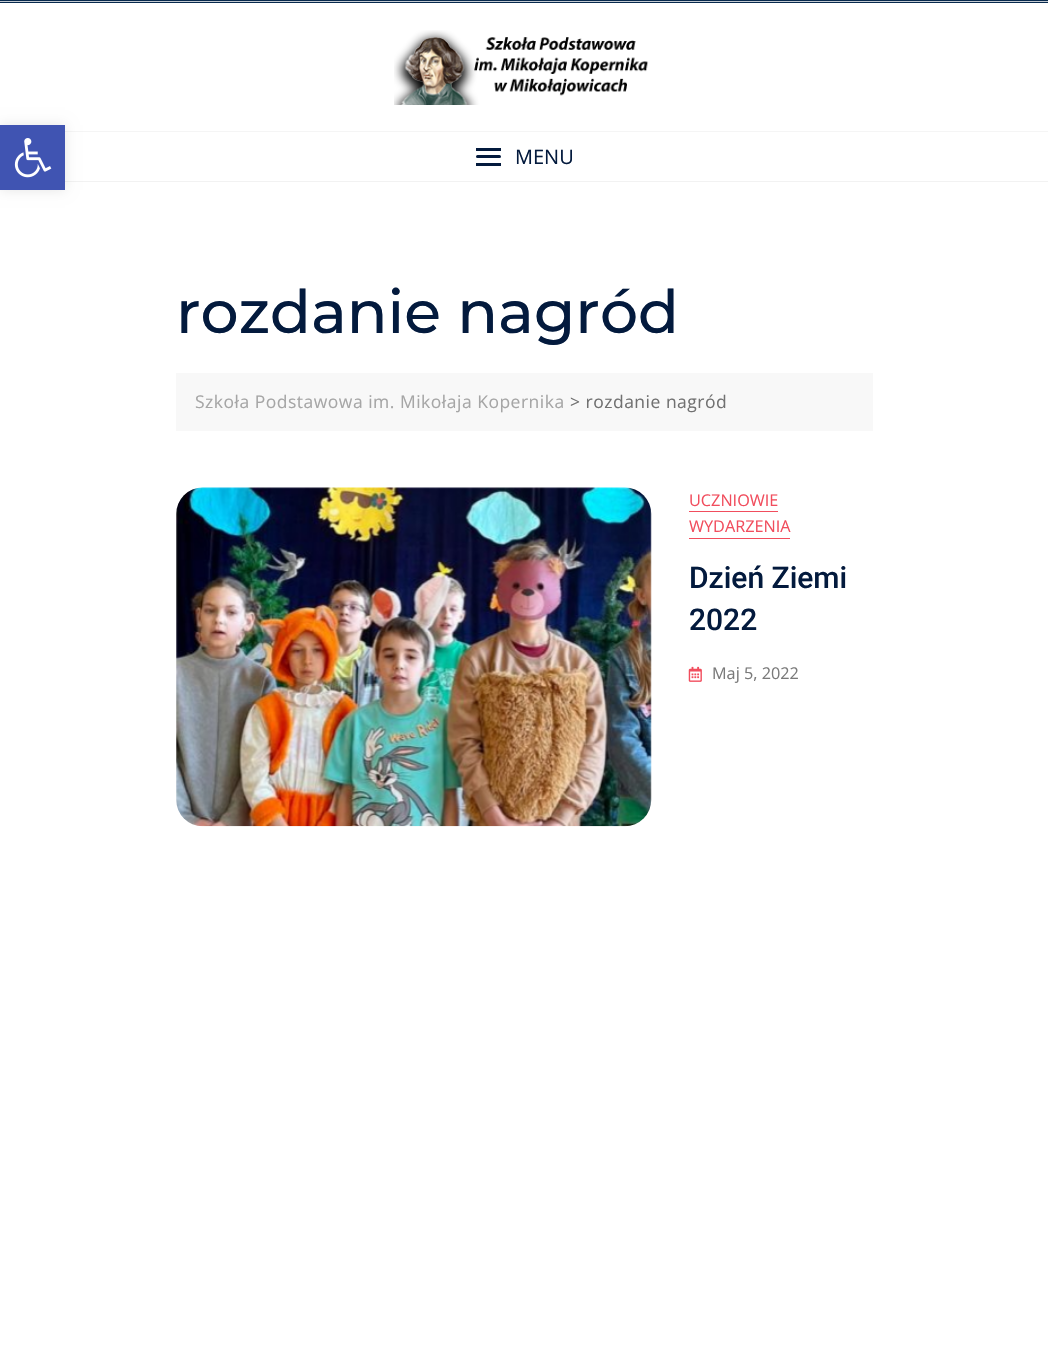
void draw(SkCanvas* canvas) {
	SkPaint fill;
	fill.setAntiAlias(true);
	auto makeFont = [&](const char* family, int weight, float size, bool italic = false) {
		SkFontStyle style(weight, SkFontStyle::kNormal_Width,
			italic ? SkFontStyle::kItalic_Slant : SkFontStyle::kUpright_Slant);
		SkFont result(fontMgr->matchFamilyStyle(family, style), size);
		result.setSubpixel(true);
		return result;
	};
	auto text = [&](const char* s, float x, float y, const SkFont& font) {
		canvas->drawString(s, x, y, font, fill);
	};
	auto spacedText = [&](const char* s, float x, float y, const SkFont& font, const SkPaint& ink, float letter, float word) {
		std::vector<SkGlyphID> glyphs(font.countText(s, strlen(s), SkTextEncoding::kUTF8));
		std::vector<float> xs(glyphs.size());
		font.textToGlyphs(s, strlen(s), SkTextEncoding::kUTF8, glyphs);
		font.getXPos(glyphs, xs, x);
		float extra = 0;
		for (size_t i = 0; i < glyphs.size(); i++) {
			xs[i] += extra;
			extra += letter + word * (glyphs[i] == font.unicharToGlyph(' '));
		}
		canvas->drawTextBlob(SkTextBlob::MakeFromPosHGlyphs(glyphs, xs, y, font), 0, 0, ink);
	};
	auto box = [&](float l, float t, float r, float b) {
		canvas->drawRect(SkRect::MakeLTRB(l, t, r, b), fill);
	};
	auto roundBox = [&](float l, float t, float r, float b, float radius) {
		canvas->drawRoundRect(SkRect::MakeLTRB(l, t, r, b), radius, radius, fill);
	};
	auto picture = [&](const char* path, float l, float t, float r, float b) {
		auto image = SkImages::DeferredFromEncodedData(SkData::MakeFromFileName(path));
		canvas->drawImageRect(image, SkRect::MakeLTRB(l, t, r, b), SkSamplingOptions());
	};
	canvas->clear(0xFFFFFFFF);
	fill.setColor(0xFFF5F5F5);
	box(65, 131, 1048, 132);
	fill.setColor(0xFFF2F2F2);
	box(65, 181, 1048, 182);
	fill.setColor(0x1A000000);
	fill.setMaskFilter(SkMaskFilter::MakeBlur(kNormal_SkBlurStyle, 6));
	canvas->drawRect(SkRect::MakeLTRB(0, 125, 65, 190), fill);
	fill.setMaskFilter(nullptr);
	fill.setColor(0xFF4054B2);
	box(0, 125, 65, 190);
	picture("image0.png", 14, 138, 52, 178);
	fill.setColor(0xFF07294D);
	box(0, 0, 1048, 3);
	fill.setColor(0xFFC4CBD2);
	box(0, 1, 1048, 2);
	picture("image1.png", 394, 30, 649, 105);
	fill.setColor(0xFF031A3D);
	roundBox(476, 155, 501, 158, 1.5f);
	box(476, 148, 501, 151);
	box(476, 163, 501, 166);
	fill.setColor(0xFFF8F8F8);
	box(176, 373, 873, 431);
	picture("image2.png", 176, 487, 652, 827);
	fill.setColor(0xFFF14D5D);
	box(689, 511, 778, 512);
	box(689, 538, 790, 539);
	picture("image3.png", 688, 666, 702, 682);
	auto font1 = makeFont("Open Sans", 400, 20);
	fill.setColor(0xFF031A3D);
	text("MENU", 515, 164, font1);
	auto font2 = makeFont("Montserrat", 100, 60);
	text("rozdanie nagród", 176, 333, font2);
	auto font3 = makeFont("Open Sans", 400, 17.5f);
	fill.setColor(0xFFA6A6A6);
	spacedText("Szkoła Podstawowa im. Mikołaja Kopernika", 195, 408, font3, fill, 0.5f, 0);
	fill.setColor(0xFF717171);
	spacedText("> rozdanie nagród", 570, 408, font3, fill, 0.5f, 0);
	auto font4 = makeFont("Open Sans", 400, 16.25f);
	fill.setColor(0xFFF14D5D);
	text("UCZNIOWIE", 689, 506, font4);
	text("WYDARZENIA", 689, 532, font4);
	auto font5 = makeFont("Roboto", 500, 30);
	fill.setColor(0xFF031A3D);
	text("Dzień Ziemi", 689, 588, font5);
	text("2022", 689, 630, font5);
	fill.setColor(0xFF7A7A7A);
	text("Maj 5, 2022", 712, 679, font4);
}
